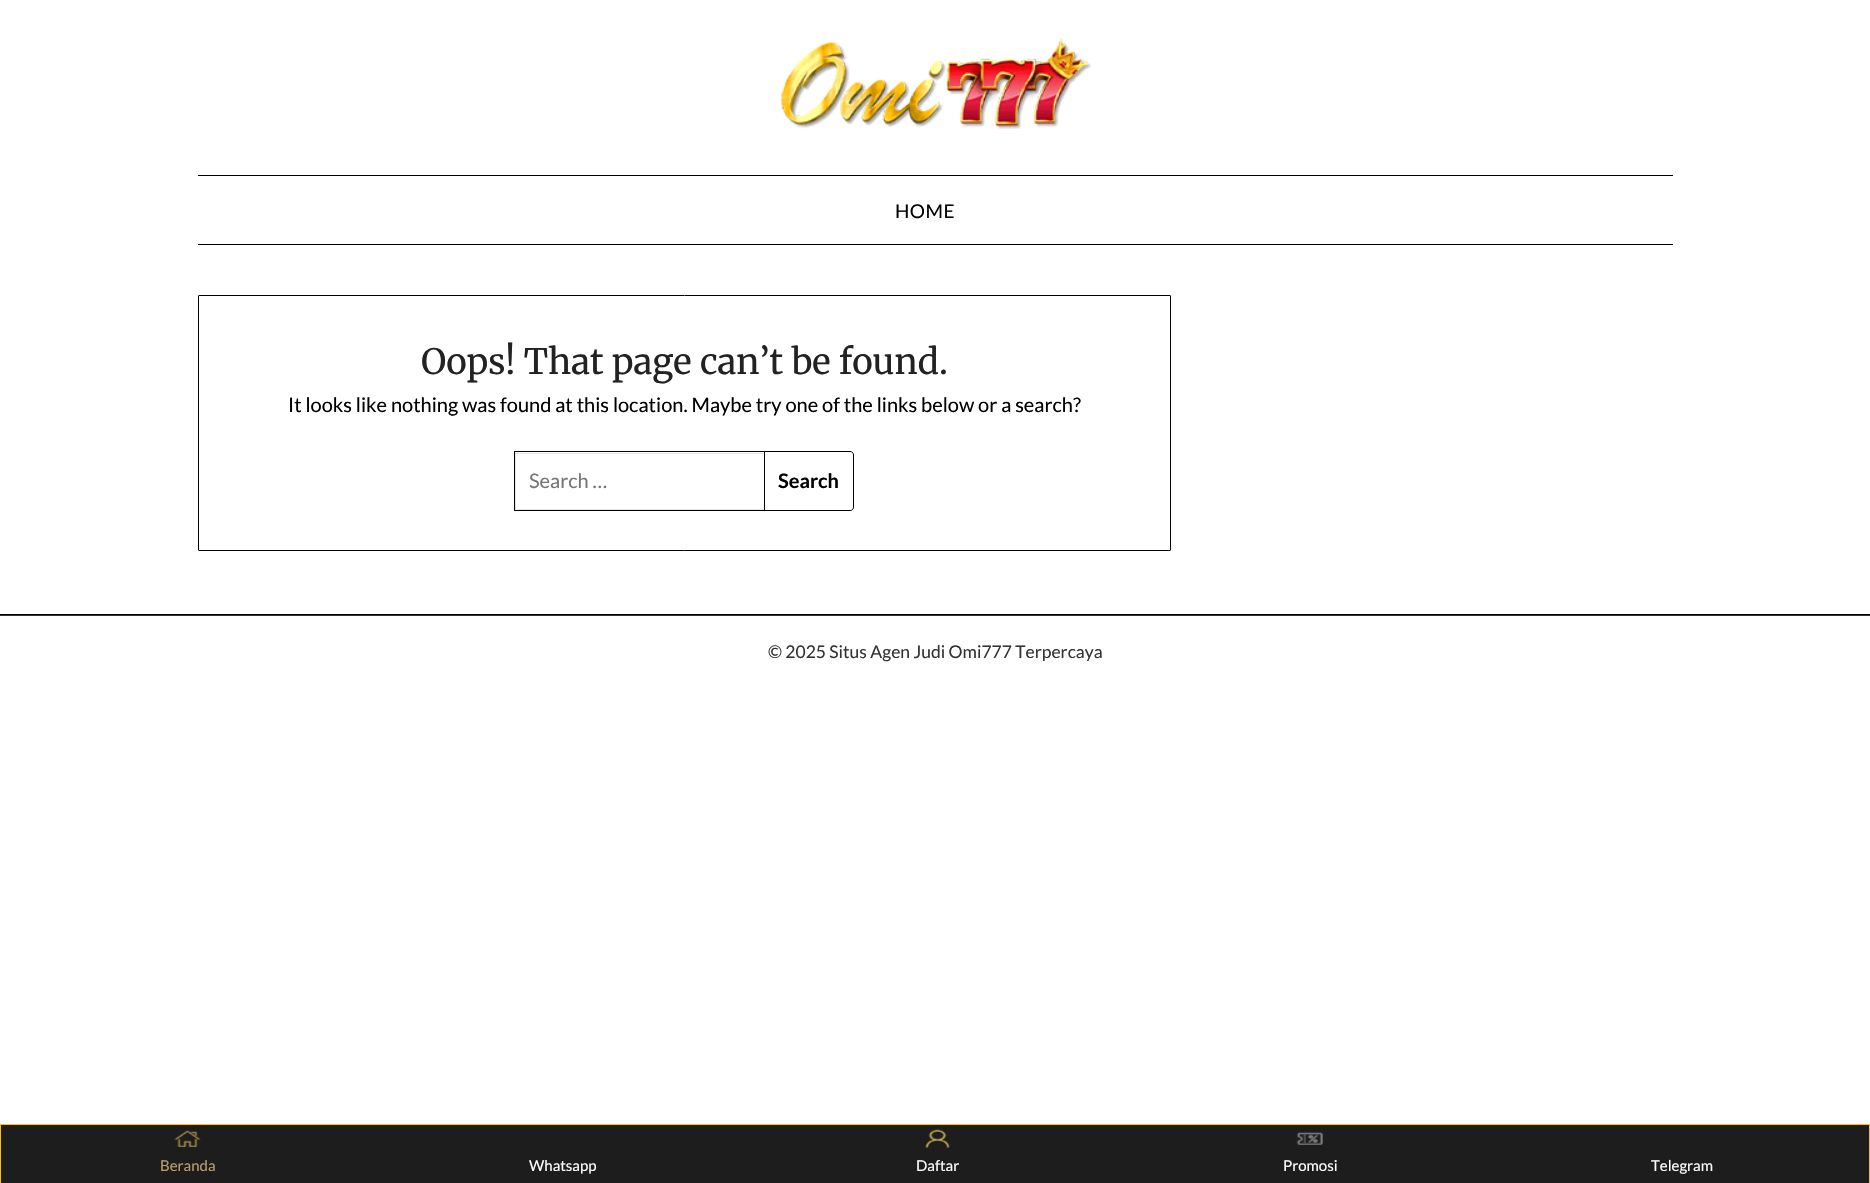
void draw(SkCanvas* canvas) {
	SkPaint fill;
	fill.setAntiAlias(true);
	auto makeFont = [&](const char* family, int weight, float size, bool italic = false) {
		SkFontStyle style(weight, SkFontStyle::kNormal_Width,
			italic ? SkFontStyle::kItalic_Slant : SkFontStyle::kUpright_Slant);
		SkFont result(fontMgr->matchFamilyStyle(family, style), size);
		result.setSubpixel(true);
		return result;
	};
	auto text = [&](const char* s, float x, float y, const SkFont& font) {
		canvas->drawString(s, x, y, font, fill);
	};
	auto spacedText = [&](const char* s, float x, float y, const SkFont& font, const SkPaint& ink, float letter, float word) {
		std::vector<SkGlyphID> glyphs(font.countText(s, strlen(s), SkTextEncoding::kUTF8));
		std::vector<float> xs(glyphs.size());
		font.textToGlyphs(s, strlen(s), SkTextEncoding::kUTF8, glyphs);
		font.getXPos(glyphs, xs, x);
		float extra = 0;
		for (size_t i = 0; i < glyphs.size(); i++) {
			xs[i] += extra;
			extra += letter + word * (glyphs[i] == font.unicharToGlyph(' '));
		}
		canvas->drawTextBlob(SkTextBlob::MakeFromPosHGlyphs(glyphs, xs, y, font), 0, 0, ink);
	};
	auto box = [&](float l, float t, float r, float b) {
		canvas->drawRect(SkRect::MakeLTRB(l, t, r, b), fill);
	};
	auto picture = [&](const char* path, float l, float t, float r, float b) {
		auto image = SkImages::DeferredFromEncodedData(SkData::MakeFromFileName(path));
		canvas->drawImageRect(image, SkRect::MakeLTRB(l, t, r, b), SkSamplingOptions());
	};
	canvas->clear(0xFFFFFFFF);
	picture("image0.png", 781, 38, 1091, 129);
	fill.setColor(0xFF000000);
	box(198, 175, 1673, 176);
	box(198, 244, 1673, 245);
	fill.setStyle(SkPaint::kStroke_Style);
	fill.setStrokeWidth(1);
	canvas->drawRoundRect(SkRect::MakeLTRB(198.5f, 295.5f, 1170.5f, 550.5f), 0.5f, 0.5f, fill);
	fill.setStyle(SkPaint::kFill_Style);
	box(514, 451, 765, 452);
	box(514, 510, 765, 511);
	box(514, 451, 515, 511);
	fill.setStyle(SkPaint::kStroke_Style);
	fill.setColor(0xFFE5E6E9);
	canvas->drawRect(SkRect::MakeLTRB(515.5f, 453.5f, 764.5f, 509.5f), fill);
	fill.setColor(0xFF000000);
	canvas->drawPath(SkPathBuilder().moveTo(764.5f, 451.5f).lineTo(850, 451.5f).cubicTo(852, 451.5f, 853.5f, 453, 853.5f, 455).lineTo(853.5f, 507).cubicTo(853.5f, 509, 852, 510.5f, 850, 510.5f).lineTo(764.5f, 510.5f).close().detach(), fill);
	fill.setStyle(SkPaint::kFill_Style);
	box(0, 614, 1870, 615);
	fill.setColor(0xFF333333);
	box(0, 615, 1870, 616);
	fill.setColor(0xFF1D1D1D);
	canvas->drawRect(SkRect::MakeLTRB(0.5f, 1124.5f, 1869.5f, 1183.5f), fill);
	fill.setStyle(SkPaint::kStroke_Style);
	fill.setColor(0xFFFFBC0C);
	canvas->drawRect(SkRect::MakeLTRB(0.5f, 1124.5f, 1869.5f, 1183.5f), fill);
	picture("image1.png", 174, 1130, 201, 1147);
	picture("image2.png", 925, 1129, 950, 1148);
	picture("image3.png", 1296, 1132, 1323, 1145);
	auto font1 = makeFont("Lato", 400, 19);
	fill.setStyle(SkPaint::kFill_Style);
	fill.setColor(0xFF000000);
	spacedText("HOME", 895, 218, font1, fill, 0.5f, 0);
	auto font2 = makeFont("Merriweather", 400, 35);
	fill.setColor(0xFF222222);
	text("Oops! That page can’t be found.", 421, 374, font2);
	auto font3 = makeFont("Lato", 400, 20);
	fill.setColor(0xFF000000);
	text("It looks like nothing was found at this location. Maybe try one of the links below or a search?", 288, 412, font3);
	fill.setColor(0xFF757575);
	text("Search …", 529, 488, font3);
	auto font4 = makeFont("Lato", 700, 20);
	fill.setColor(0xFF000000);
	text("Search", 778, 488, font4);
	auto font5 = makeFont("Lato", 400, 17.5f);
	fill.setColor(0xFF333333);
	text("© 2025 Situs Agen Judi Omi777 Terpercaya", 768, 658, font5);
	auto font6 = makeFont("Lato", 400, 15);
	fill.setColor(0xFFBA9F6E);
	text("Beranda", 160, 1171, font6);
	fill.setColor(0xFFFFFFFF);
	text("Whatsapp", 529, 1171, font6);
	text("Daftar", 916, 1171, font6);
	text("Promosi", 1283, 1171, font6);
	text("Telegram", 1651, 1171, font6);
}
